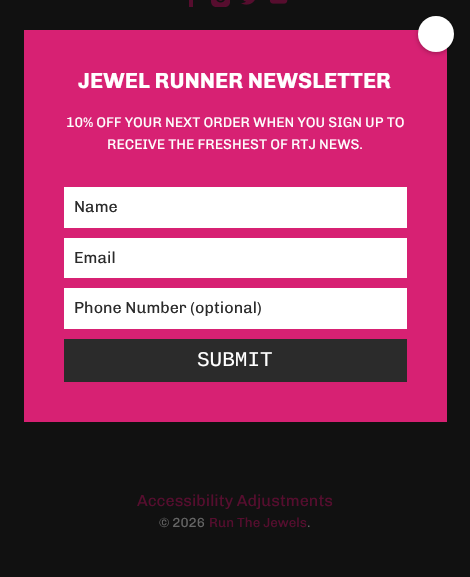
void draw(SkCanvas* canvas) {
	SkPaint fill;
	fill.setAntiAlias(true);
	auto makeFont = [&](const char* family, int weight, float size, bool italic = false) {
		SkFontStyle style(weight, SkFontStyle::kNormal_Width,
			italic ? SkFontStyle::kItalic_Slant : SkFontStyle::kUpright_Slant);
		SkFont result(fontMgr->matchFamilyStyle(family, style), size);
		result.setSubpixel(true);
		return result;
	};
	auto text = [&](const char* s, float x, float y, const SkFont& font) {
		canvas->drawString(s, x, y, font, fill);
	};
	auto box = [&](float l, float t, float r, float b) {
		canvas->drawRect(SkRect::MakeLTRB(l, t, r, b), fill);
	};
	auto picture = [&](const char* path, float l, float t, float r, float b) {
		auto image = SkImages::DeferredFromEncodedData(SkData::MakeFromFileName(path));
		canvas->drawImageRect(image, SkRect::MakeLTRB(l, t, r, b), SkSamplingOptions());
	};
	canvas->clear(0xFF111111);
	fill.setColor(0xFFD72173);
	box(24, 30, 447, 422);
	fill.setColor(0x4D000000);
	fill.setMaskFilter(SkMaskFilter::MakeBlur(kNormal_SkBlurStyle, 2.5f));
	canvas->drawRoundRect(SkRect::MakeLTRB(418, 17, 454, 53), 18, 18, fill);
	fill.setMaskFilter(nullptr);
	fill.setColor(0xFFFFFFFF);
	canvas->drawCircle(436, 34, 18, fill);
	box(64, 187, 407, 228);
	box(64, 238, 407, 278);
	box(64, 288, 407, 329);
	fill.setColor(0xFF2B2B2B);
	box(64, 339, 407, 382);
	fill.setColor(0xFF560D2E);
	box(189, 0, 193, 7);
	picture("image0.png", 211, 0, 230, 7);
	picture("image1.png", 241, 0, 255, 5);
	picture("image2.png", 269, 0, 288, 4);
	auto font1 = makeFont("Chivo", 700, 22);
	fill.setColor(0xFFFFFFFF);
	text("JEWEL RUNNER NEWSLETTER", 78, 88, font1);
	auto font2 = makeFont("Chivo", 400, 14);
	text("10% OFF YOUR NEXT ORDER WHEN YOU SIGN UP TO", 66, 127, font2);
	text("RECEIVE THE FRESHEST OF RTJ NEWS.", 107, 149, font2);
	auto font3 = makeFont("Chivo", 400, 16);
	fill.setColor(0xFF2B2B2B);
	text("Name", 74, 212, font3);
	text("Email", 74, 263, font3);
	text("Phone Number (optional)", 74, 313, font3);
	auto font4 = makeFont("Liberation Mono", 400, 21);
	fill.setColor(0xFFFFFFFF);
	text("SUBMIT", 197, 366, font4);
	fill.setColor(0xFF560D2E);
	text("Accessibility Adjustments", 137, 506, font3);
	auto font5 = makeFont("Chivo", 400, 13.25f);
	fill.setColor(0xFF666666);
	text("© 2026", 159, 527, font5);
	fill.setColor(0xFF560D2E);
	text("Run The Jewels", 209, 527, font5);
	fill.setColor(0xFF666666);
	text(".", 307, 527, font5);
}
